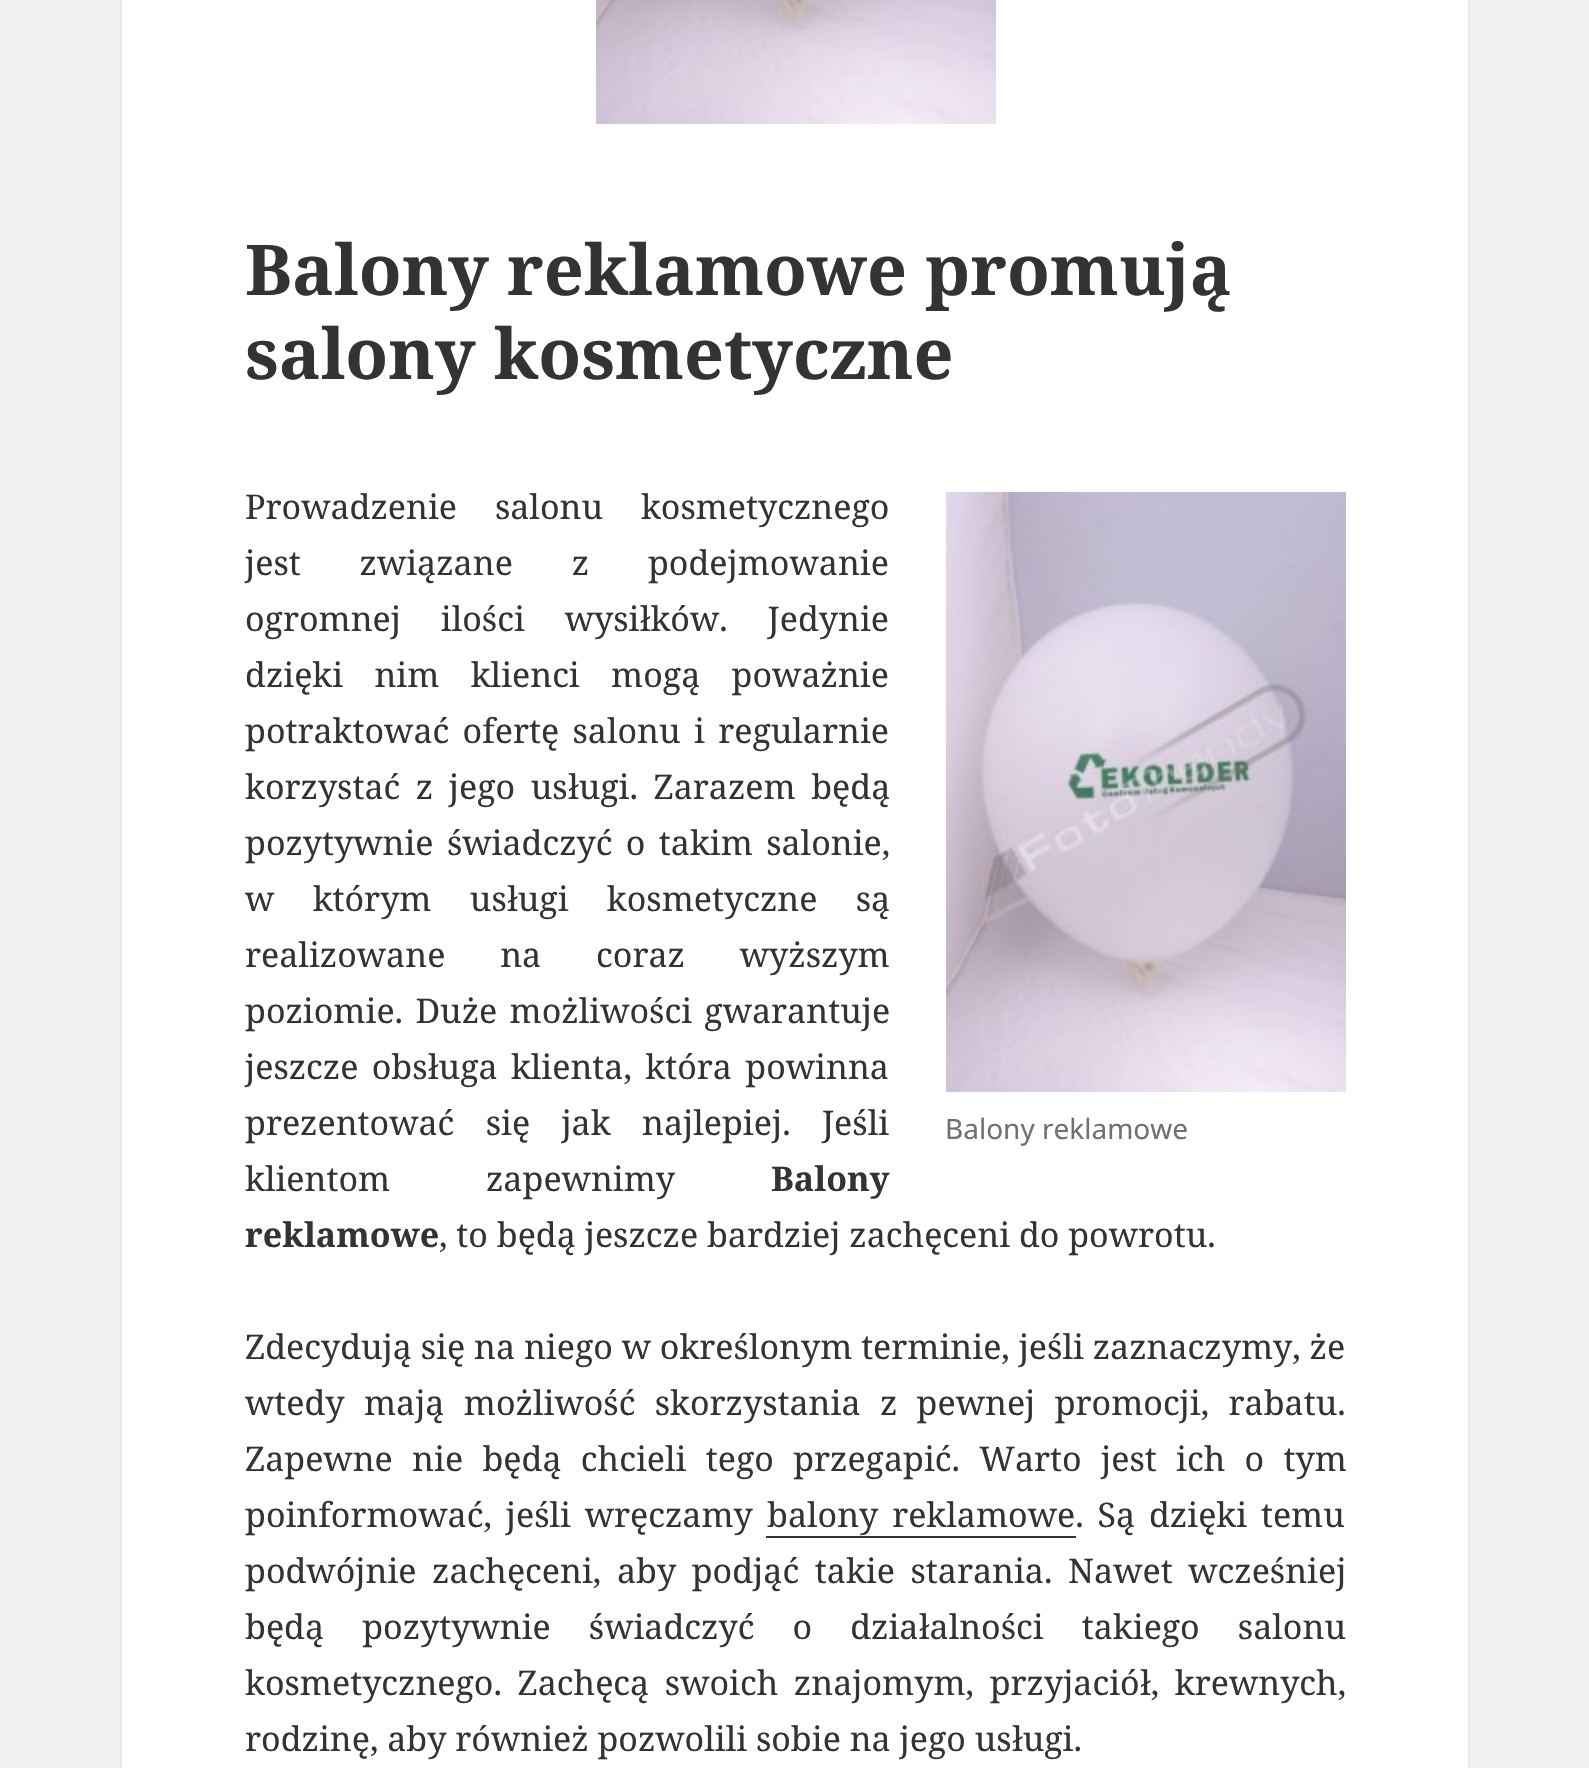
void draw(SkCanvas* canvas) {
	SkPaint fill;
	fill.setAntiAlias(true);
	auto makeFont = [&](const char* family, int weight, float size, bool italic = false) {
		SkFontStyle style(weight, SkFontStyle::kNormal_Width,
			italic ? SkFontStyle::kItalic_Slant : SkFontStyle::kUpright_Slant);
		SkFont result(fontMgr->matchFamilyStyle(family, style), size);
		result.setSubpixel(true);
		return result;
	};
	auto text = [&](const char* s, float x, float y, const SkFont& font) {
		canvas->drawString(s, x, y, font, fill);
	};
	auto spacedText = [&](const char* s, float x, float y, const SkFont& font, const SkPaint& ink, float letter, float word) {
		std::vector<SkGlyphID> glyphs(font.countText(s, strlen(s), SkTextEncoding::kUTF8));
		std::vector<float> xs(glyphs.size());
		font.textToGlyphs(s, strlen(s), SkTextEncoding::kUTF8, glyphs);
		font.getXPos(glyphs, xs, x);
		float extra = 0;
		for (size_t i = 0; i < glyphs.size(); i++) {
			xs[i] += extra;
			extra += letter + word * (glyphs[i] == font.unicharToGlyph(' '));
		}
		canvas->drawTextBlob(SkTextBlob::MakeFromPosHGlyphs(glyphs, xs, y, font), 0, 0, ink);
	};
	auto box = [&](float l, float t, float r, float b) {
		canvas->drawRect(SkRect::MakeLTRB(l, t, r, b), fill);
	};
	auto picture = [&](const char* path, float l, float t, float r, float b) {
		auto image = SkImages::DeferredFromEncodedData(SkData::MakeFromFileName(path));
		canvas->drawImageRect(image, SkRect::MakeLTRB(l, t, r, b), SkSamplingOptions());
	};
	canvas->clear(0xFFF1F1F1);
	fill.setColor(0x26000000);
	fill.setMaskFilter(SkMaskFilter::MakeBlur(kNormal_SkBlurStyle, 1));
	canvas->drawRect(SkRect::MakeLTRB(122, -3, 1468, 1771), fill);
	fill.setMaskFilter(nullptr);
	fill.setColor(0xFFFFFFFF);
	box(122, 0, 1468, 1768);
	picture("image0.png", 596, 0, 996, 124);
	picture("image1.png", 946, 492, 1346, 1092);
	fill.setColor(0xFF333333);
	box(766, 1536, 1076, 1538);
	auto font1 = makeFont("Noto Serif", 700, 70);
	text("Balony reklamowe promują", 245, 295, font1);
	text("salony kosmetyczne", 245, 379, font1);
	auto font2 = makeFont("Noto Serif", 400, 34);
	spacedText("Prowadzenie salonu kosmetycznego", 245, 519, font2, fill, 0, 29);
	spacedText("jest związane z podejmowanie", 245, 575, font2, fill, 0, 50);
	spacedText("ogromnej ilości wysiłków. Jedynie", 245, 631, font2, fill, 0, 31);
	spacedText("dzięki nim klienci mogą poważnie", 245, 687, font2, fill, 0, 22.5f);
	spacedText("potraktować ofertę salonu i regularnie", 245, 743, font2, fill, 0, 4.5f);
	spacedText("korzystać z jego usługi. Zarazem będą", 245, 799, font2, fill, 0, 6.75f);
	spacedText("pozytywnie świadczyć o takim salonie,", 245, 855, font2, fill, 0, 4.5f);
	spacedText("w którym usługi kosmetyczne są", 245, 911, font2, fill, 0, 29.5f);
	spacedText("realizowane na coraz wyższym", 245, 967, font2, fill, 0, 46);
	spacedText("poziomie. Duże możliwości gwarantuje", 245, 1023, font2, fill, 0, 3.5f);
	spacedText("jeszcze obsługa klienta, która powinna", 245, 1079, font2, fill, 0, 4.5f);
	spacedText("prezentować się jak najlepiej. Jeśli", 245, 1135, font2, fill, 0, 22.5f);
	spacedText("klientom zapewnimy", 245, 1191, font2, fill, 0, 87);
	auto font3 = makeFont("Noto Serif", 700, 34);
	text("Balony", 771, 1191, font3);
	text("reklamowe", 245, 1247, font3);
	text(", to będą jeszcze bardziej zachęceni do powrotu.", 439, 1247, font2);
	auto font4 = makeFont("Noto Sans", 400, 28);
	fill.setColor(0xFF707070);
	text("Balony reklamowe", 945, 1139, font4);
	fill.setColor(0xFF333333);
	text("Zdecydują się na niego w określonym terminie, jeśli zaznaczymy, że", 245, 1359, font2);
	spacedText("wtedy mają możliwość skorzystania z pewnej promocji, rabatu.", 245, 1415, font2, fill, 0, 10.5f);
	spacedText("Zapewne nie będą chcieli tego przegapić. Warto jest ich o tym", 245, 1471, font2, fill, 0, 10.5f);
	spacedText("poinformować, jeśli wręczamy", 245, 1527, font2, fill, 0, 5);
	spacedText("balony reklamowe. Są dzięki temu", 767, 1527, font2, fill, 0, 5);
	spacedText("podwójnie zachęceni, aby podjąć takie starania. Nawet wcześniej", 245, 1583, font2, fill, 0, 6.75f);
	spacedText("będą pozytywnie świadczyć o działalności takiego salonu", 245, 1639, font2, fill, 0, 29.25f);
	spacedText("kosmetycznego. Zachęcą swoich znajomym, przyjaciół, krewnych,", 245, 1695, font2, fill, 0, 6.75f);
	text("rodzinę, aby również pozwolili sobie na jego usługi.", 245, 1751, font2);
}
